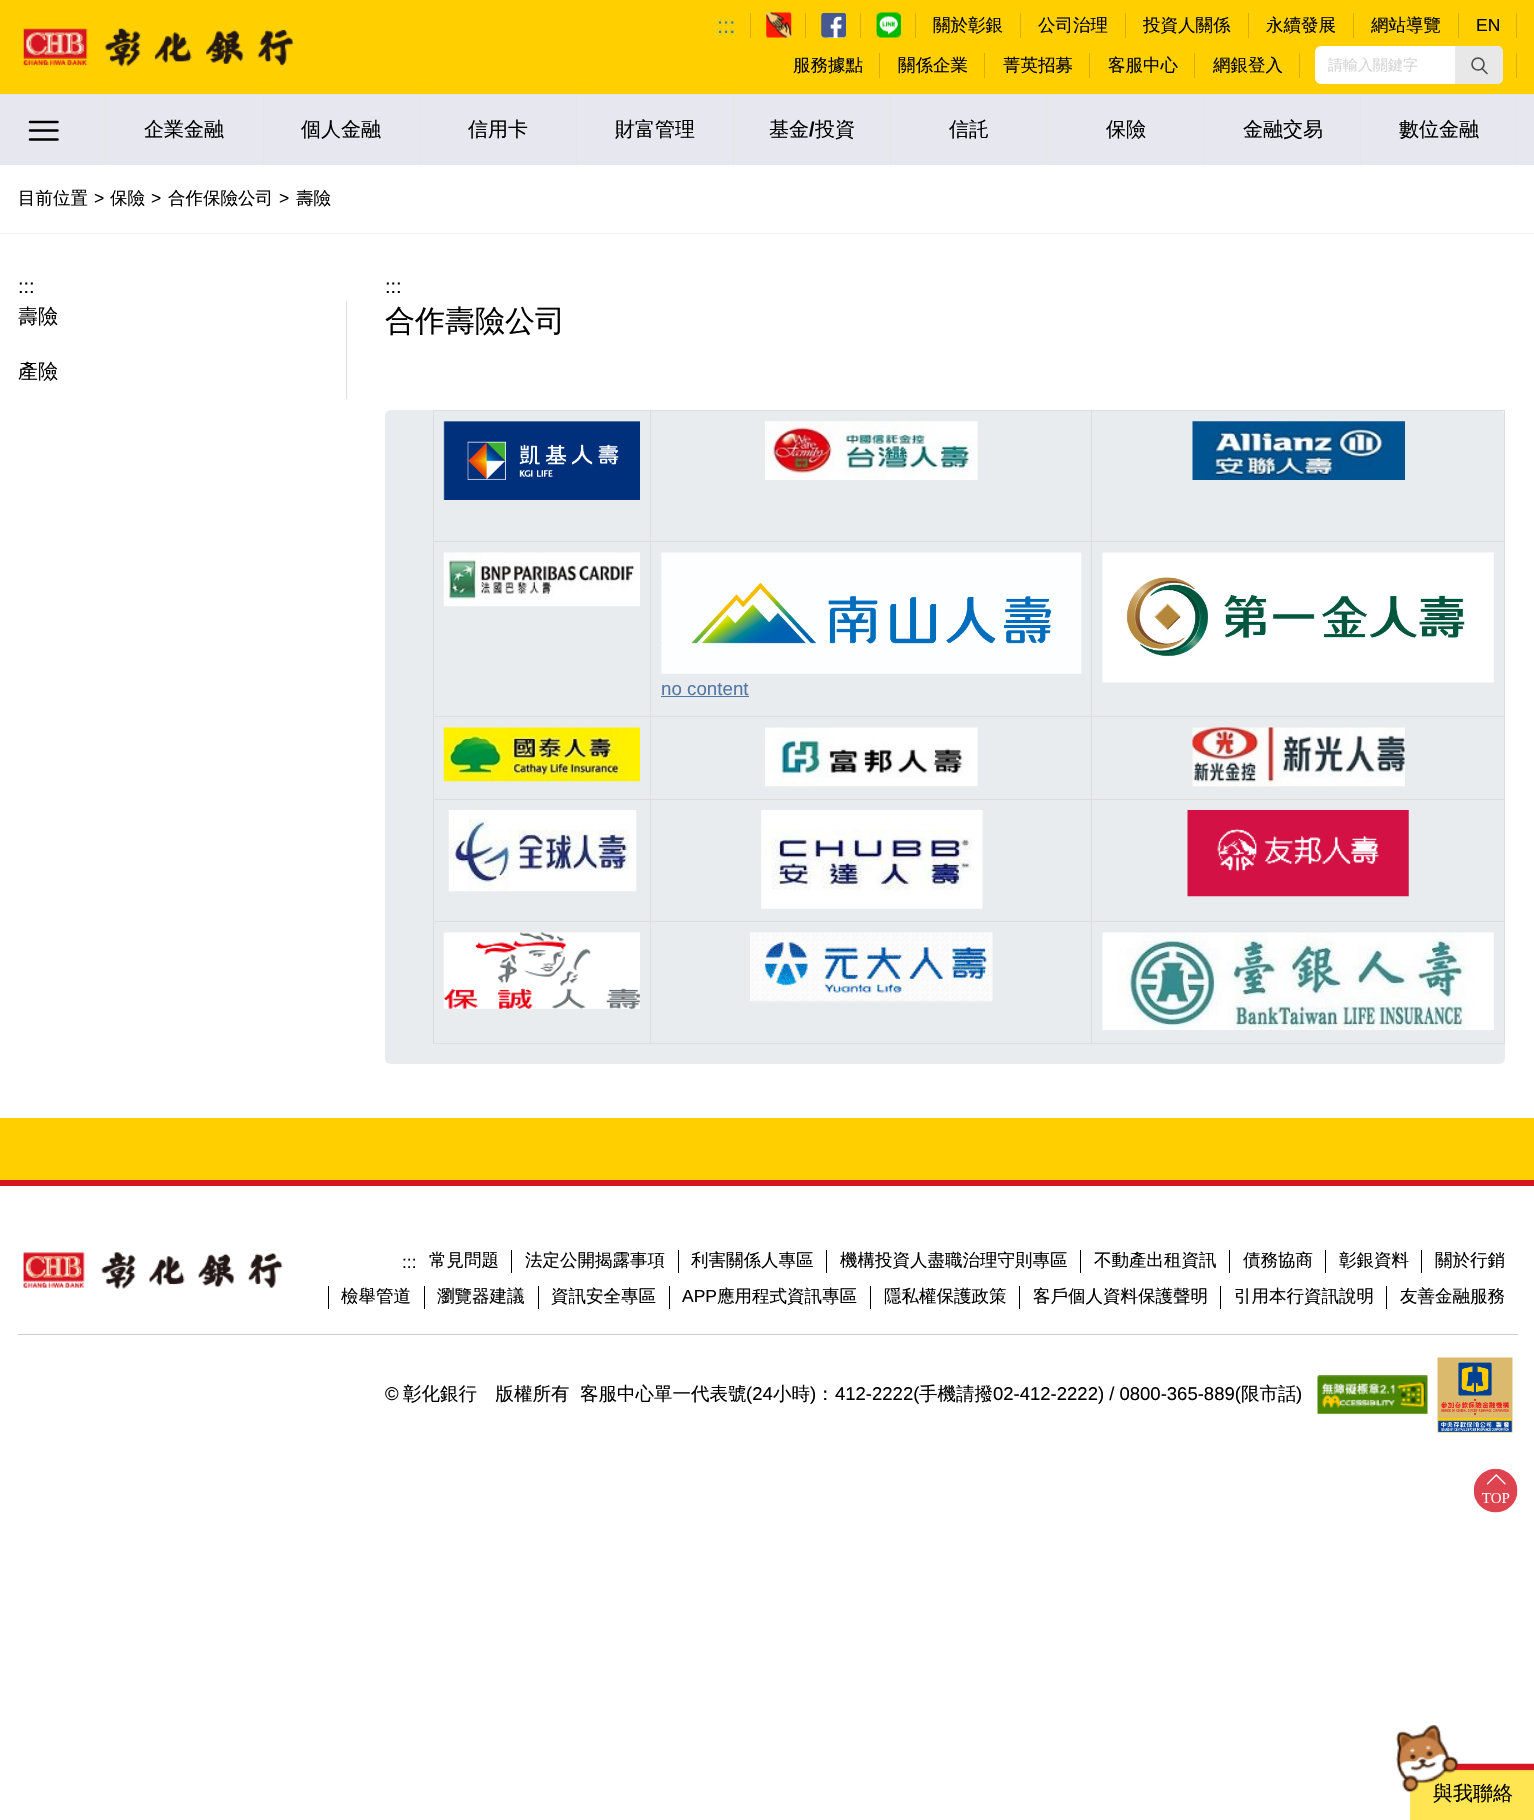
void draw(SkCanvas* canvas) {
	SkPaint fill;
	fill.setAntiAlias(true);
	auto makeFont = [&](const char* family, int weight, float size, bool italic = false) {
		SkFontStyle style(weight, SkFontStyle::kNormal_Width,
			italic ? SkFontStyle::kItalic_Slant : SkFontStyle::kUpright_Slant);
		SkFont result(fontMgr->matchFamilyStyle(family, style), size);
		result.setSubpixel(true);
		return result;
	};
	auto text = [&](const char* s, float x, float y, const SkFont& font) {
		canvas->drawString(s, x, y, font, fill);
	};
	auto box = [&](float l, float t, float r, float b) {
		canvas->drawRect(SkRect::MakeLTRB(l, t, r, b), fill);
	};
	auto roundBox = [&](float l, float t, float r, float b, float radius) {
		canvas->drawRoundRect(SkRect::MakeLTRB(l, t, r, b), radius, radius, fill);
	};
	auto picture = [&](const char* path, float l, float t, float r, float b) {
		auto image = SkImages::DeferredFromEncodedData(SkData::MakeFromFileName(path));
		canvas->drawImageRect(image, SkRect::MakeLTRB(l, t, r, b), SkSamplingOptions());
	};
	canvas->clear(0xFFFFFFFF);
	fill.setColor(0xFFFFCF00);
	box(0, 0, 1534, 94);
	picture("image0.png", 23, 28, 294, 67);
	fill.setColor(0xFFD8AF00);
	box(750, 13, 751, 38);
	picture("image1.png", 766, 12, 792, 38);
	box(805, 13, 806, 38);
	picture("image2.png", 821, 13, 846, 38);
	box(860, 13, 861, 38);
	picture("image3.png", 876, 12, 901, 38);
	box(915, 13, 916, 38);
	box(1020, 13, 1021, 38);
	box(1125, 13, 1126, 38);
	box(1248, 13, 1249, 38);
	box(1353, 13, 1354, 38);
	box(1458, 13, 1459, 38);
	box(1516, 13, 1517, 38);
	box(879, 53, 880, 78);
	box(984, 53, 985, 78);
	box(1089, 53, 1090, 78);
	box(1194, 53, 1195, 78);
	box(1299, 53, 1300, 78);
	fill.setColor(0xFFFFFFFF);
	roundBox(1315, 46, 1503, 84, 6);
	fill.setColor(0xFFE8E8E8);
	canvas->drawPath(SkPathBuilder().moveTo(1455, 46).lineTo(1497, 46).cubicTo(1500.5f, 46, 1503, 48.5f, 1503, 52).lineTo(1503, 78).cubicTo(1503, 81.5f, 1500.5f, 84, 1497, 84).lineTo(1455, 84).close().detach(), fill);
	fill.setStyle(SkPaint::kStroke_Style);
	fill.setStrokeWidth(1.6f);
	fill.setColor(0xFF4A4A4A);
	canvas->drawCircle(1478, 64, 6, fill);
	fill.setStrokeCap(SkPaint::kRound_Cap);
	canvas->drawPath(SkPathBuilder().moveTo(1482.5f, 69).lineTo(1487, 73.5f).detach(), fill);
	fill.setStyle(SkPaint::kFill_Style);
	fill.setColor(0xFFD8AF00);
	box(1516, 53, 1517, 78);
	fill.setColor(0xFFE7E8EF);
	box(0, 95, 1534, 165);
	fill.setColor(0xFFE5E5E5);
	box(0, 94, 1534, 95);
	fill.setStyle(SkPaint::kStroke_Style);
	fill.setStrokeWidth(2.5f);
	fill.setStrokeJoin(SkPaint::kRound_Join);
	fill.setColor(0xFF000000);
	canvas->drawPath(SkPathBuilder().moveTo(30, 122).lineTo(57.5f, 122).moveTo(30, 130.5f).lineTo(57.5f, 130.5f).moveTo(30, 139.5f).lineTo(57.5f, 139.5f).detach(), fill);
	fill.setStyle(SkPaint::kFill_Style);
	fill.setColor(0xFFE5E5E5);
	box(105, 95, 106, 165);
	box(263, 95, 264, 165);
	box(419, 95, 420, 165);
	box(576, 95, 577, 165);
	box(733, 95, 734, 165);
	box(890, 95, 891, 165);
	box(1046, 95, 1047, 165);
	box(1204, 95, 1205, 165);
	box(1516, 95, 1517, 165);
	box(1360, 95, 1361, 165);
	fill.setColor(0xFFF2F2F2);
	box(0, 233, 1534, 234);
	fill.setColor(0xFFDDDDDD);
	box(346, 301, 347, 399);
	fill.setColor(0xFFE9ECEF);
	roundBox(385, 410, 1505, 1064, 6);
	fill.setColor(0xFFDDDDDD);
	box(1091, 410, 1505, 411);
	box(1091, 541, 1505, 542);
	box(1091, 716, 1505, 717);
	box(1091, 799, 1505, 800);
	box(1091, 921, 1505, 922);
	box(1504, 921, 1505, 1044);
	box(1091, 1043, 1505, 1044);
	box(1091, 921, 1092, 1044);
	box(650, 921, 1093, 922);
	box(1091, 799, 1092, 923);
	box(650, 799, 1093, 800);
	box(1091, 716, 1092, 800);
	box(650, 716, 1093, 717);
	box(1091, 541, 1092, 718);
	box(650, 541, 1093, 542);
	box(1091, 410, 1092, 543);
	box(650, 410, 1093, 411);
	box(650, 1043, 1093, 1044);
	box(650, 921, 651, 1044);
	box(433, 921, 651, 922);
	box(650, 799, 651, 923);
	box(433, 799, 651, 800);
	box(650, 716, 651, 800);
	box(433, 716, 651, 717);
	box(650, 541, 651, 718);
	box(433, 541, 651, 542);
	box(650, 410, 651, 543);
	box(433, 410, 651, 411);
	box(433, 1043, 651, 1044);
	box(433, 921, 434, 1044);
	box(433, 799, 434, 923);
	box(433, 716, 434, 800);
	box(433, 541, 434, 718);
	box(433, 410, 434, 543);
	picture("image4.png", 443, 421, 640, 500);
	picture("image5.png", 765, 421, 978, 480);
	box(1504, 799, 1505, 923);
	box(1504, 716, 1505, 800);
	box(1504, 541, 1505, 718);
	box(1504, 410, 1505, 543);
	picture("image6.png", 1192, 421, 1405, 480);
	picture("image7.png", 443, 552, 640, 607);
	picture("image8.png", 661, 552, 1082, 674);
	fill.setColor(0xFF5577A4);
	box(661, 696, 749, 697);
	picture("image9.png", 1102, 552, 1494, 683);
	picture("image10.png", 443, 727, 640, 782);
	picture("image11.png", 765, 727, 978, 787);
	picture("image12.png", 1192, 727, 1405, 787);
	picture("image13.png", 448, 810, 637, 892);
	picture("image14.png", 761, 810, 983, 909);
	picture("image15.png", 1187, 810, 1409, 897);
	picture("image16.png", 443, 932, 640, 1009);
	picture("image17.png", 750, 932, 993, 1002);
	picture("image18.png", 1102, 932, 1494, 1030);
	fill.setColor(0xFFFFCF00);
	box(0, 1118, 1534, 1180);
	fill.setColor(0xFFD51524);
	box(0, 1180, 1534, 1186);
	picture("image19.png", 23, 1252, 283, 1289);
	fill.setColor(0xFF000000);
	box(511, 1250, 512, 1273);
	box(678, 1250, 679, 1273);
	box(826, 1250, 827, 1273);
	box(1080, 1250, 1081, 1273);
	box(1229, 1250, 1230, 1273);
	box(1325, 1250, 1326, 1273);
	box(1421, 1250, 1422, 1273);
	box(328, 1286, 329, 1309);
	box(424, 1286, 425, 1309);
	box(538, 1286, 539, 1309);
	box(669, 1286, 670, 1309);
	box(870, 1286, 871, 1309);
	box(1019, 1286, 1020, 1309);
	box(1220, 1286, 1221, 1309);
	box(1386, 1286, 1387, 1309);
	fill.setColor(0xFFCCCCCC);
	box(18, 1334, 1518, 1335);
	picture("image20.png", 1317, 1375, 1428, 1414);
	picture("image21.png", 1437, 1357, 1513, 1433);
	picture("image22.png", 1474, 1469, 1518, 1513);
	picture("image23.png", 1396, 1725, 1534, 1820);
	auto font1 = makeFont("Liberation Sans", 400, 22);
	fill.setColor(0xFF337AB7);
	text(":::", 717, 33, font1);
	auto font2 = makeFont("WenQuanYi Zen Hei", 500, 17.5f);
	fill.setColor(0xFF000000);
	text("關於彰銀", 933, 31, font2);
	text("公司治理", 1038, 31, font2);
	text("投資人關係", 1143, 31, font2);
	text("永續發展", 1266, 31, font2);
	text("網站導覽", 1371, 31, font2);
	auto font3 = makeFont("Liberation Sans", 400, 17.5f);
	text("EN", 1476, 31, font3);
	text("服務據點", 793, 71, font2);
	text("關係企業", 898, 71, font2);
	text("菁英招募", 1003, 71, font2);
	text("客服中心", 1108, 71, font2);
	text("網銀登入", 1213, 71, font2);
	canvas->save();
	canvas->clipRect(SkRect::MakeLTRB(1328, 55, 1455, 76));
	auto font4 = makeFont("WenQuanYi Zen Hei", 500, 15);
	fill.setColor(0xFFD6D6D6);
	text("請輸入關鍵字", 1328, 70, font4);
	canvas->restore();
	auto font5 = makeFont("WenQuanYi Zen Hei", 500, 20);
	fill.setColor(0xFF000000);
	text("企業金融", 144, 136, font5);
	text("個人金融", 301, 136, font5);
	text("信用卡", 468, 136, font5);
	text("財富管理", 615, 136, font5);
	text("基金", 769, 136, font5);
	auto font6 = makeFont("Liberation Sans", 700, 20);
	text("/", 809, 136, font6);
	text("投資", 815, 136, font5);
	text("信託", 949, 136, font5);
	text("保險", 1106, 136, font5);
	text("金融交易", 1243, 136, font5);
	text("數位金融", 1399, 136, font5);
	text("目前位置", 18, 204, font2);
	text(">", 94, 204, font3);
	text("保險", 110, 204, font2);
	text(">", 151, 204, font3);
	text("合作保險公司", 168, 204, font2);
	text(">", 279, 204, font3);
	text("壽險", 296, 204, font2);
	auto font7 = makeFont("Liberation Sans", 400, 20);
	text(":::", 18, 293, font7);
	text("壽險", 18, 323, font5);
	text("產險", 18, 378, font5);
	text(":::", 385, 293, font7);
	auto font8 = makeFont("WenQuanYi Zen Hei", 500, 30);
	text("合作壽險公司", 385, 331, font8);
	auto font9 = makeFont("Liberation Sans", 400, 18.75f);
	fill.setColor(0xFF5577A4);
	text("no content", 661, 695, font9);
	fill.setColor(0xFF000000);
	text(":::", 402, 1268, font3);
	text("常見問題", 429, 1266, font2);
	text("法定公開揭露事項", 525, 1266, font2);
	text("利害關係人專區", 691, 1266, font2);
	text("機構投資人盡職治理守則專區", 840, 1266, font2);
	text("不動產出租資訊", 1094, 1266, font2);
	text("債務協商", 1243, 1266, font2);
	text("彰銀資料", 1339, 1266, font2);
	text("關於行銷", 1435, 1266, font2);
	text("檢舉管道", 341, 1302, font2);
	text("瀏覽器建議", 437, 1302, font2);
	text("資訊安全專區", 551, 1302, font2);
	text("APP", 682, 1302, font3);
	text("應用程式資訊專區", 717, 1302, font2);
	text("隱私權保護政策", 884, 1302, font2);
	text("客戶個人資料保護聲明", 1033, 1302, font2);
	text("引用本行資訊說明", 1234, 1302, font2);
	text("友善金融服務", 1400, 1302, font2);
	auto font10 = makeFont("Liberation Sans", 400, 18.5f);
	text("©", 385, 1400, font10);
	auto font11 = makeFont("WenQuanYi Zen Hei", 500, 18.5f);
	text("彰化銀行　版權所有", 403, 1400, font11);
	text("客服中心單一代表號", 580, 1400, font11);
	text("(24", 746, 1400, font10);
	text("小時", 773, 1400, font11);
	text(")", 810, 1400, font10);
	text("：", 816, 1400, font11);
	text("412-2222(", 835, 1400, font10);
	text("手機請撥", 919, 1400, font11);
	text("02-412-2222) / 0800-365-889(", 993, 1400, font10);
	text("限市話", 1241, 1400, font11);
	text(")", 1296, 1400, font10);
	text("與我聯絡", 1433, 1800, font5);
}
